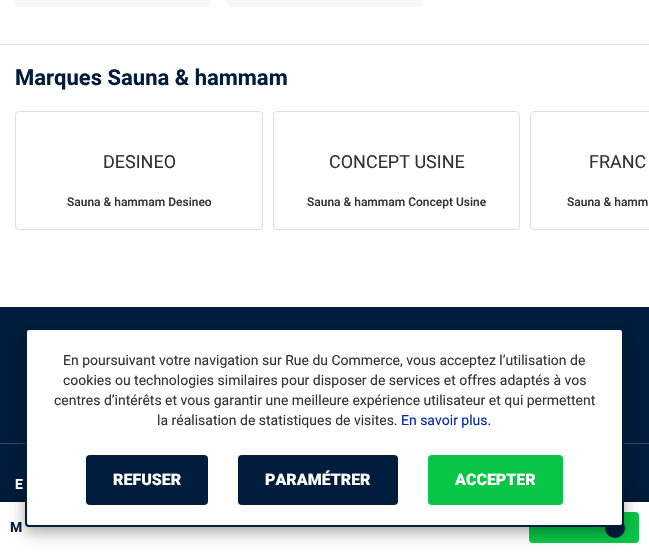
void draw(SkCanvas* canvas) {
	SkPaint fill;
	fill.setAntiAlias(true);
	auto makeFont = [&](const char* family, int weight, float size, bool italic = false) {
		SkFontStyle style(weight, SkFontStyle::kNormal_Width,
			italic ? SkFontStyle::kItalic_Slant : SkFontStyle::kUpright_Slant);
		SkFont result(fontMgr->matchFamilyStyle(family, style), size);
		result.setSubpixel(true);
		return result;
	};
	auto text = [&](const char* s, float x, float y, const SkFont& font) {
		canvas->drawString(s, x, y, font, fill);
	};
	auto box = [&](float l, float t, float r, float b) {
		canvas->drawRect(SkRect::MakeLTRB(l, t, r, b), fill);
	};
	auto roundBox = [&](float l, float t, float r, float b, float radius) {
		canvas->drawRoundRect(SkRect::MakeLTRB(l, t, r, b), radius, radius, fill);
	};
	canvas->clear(0xFFFFFFFF);
	fill.setColor(0xFFDFDFDF);
	box(0, 44, 649, 45);
	fill.setStyle(SkPaint::kStroke_Style);
	fill.setStrokeWidth(1);
	canvas->drawRoundRect(SkRect::MakeLTRB(15.5f, 111.5f, 262.5f, 229.5f), 3.5f, 3.5f, fill);
	canvas->drawRoundRect(SkRect::MakeLTRB(273.5f, 111.5f, 519.5f, 229.5f), 3.5f, 3.5f, fill);
	canvas->drawRoundRect(SkRect::MakeLTRB(530.5f, 111.5f, 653.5f, 229.5f), 3.5f, 3.5f, fill);
	fill.setStyle(SkPaint::kFill_Style);
	fill.setColor(0xFFF7F7F7);
	roundBox(15, -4, 210, 7, 4);
	roundBox(227, -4, 422, 7, 4);
	fill.setColor(0xFF001D3D);
	box(0, 444, 649, 502);
	fill.setColor(0x4D000000);
	fill.setMaskFilter(SkMaskFilter::MakeBlur(kNormal_SkBlurStyle, 10));
	canvas->drawRect(SkRect::MakeLTRB(0, 502, 649, 552), fill);
	fill.setMaskFilter(nullptr);
	fill.setColor(0xFFFFFFFF);
	box(0, 502, 649, 552);
	fill.setColor(0xFF07C546);
	roundBox(529, 512, 639, 543, 4);
	fill.setColor(0xFF001D3D);
	canvas->drawCircle(615, 528, 10, fill);
	box(0, 307, 649, 443);
	fill.setColor(0xFF334A64);
	box(0, 443, 649, 444);
	fill.setColor(0x59000000);
	fill.setMaskFilter(SkMaskFilter::MakeBlur(kNormal_SkBlurStyle, 7.5f));
	canvas->drawRoundRect(SkRect::MakeLTRB(25, 333, 624, 532), 4, 4, fill);
	fill.setMaskFilter(nullptr);
	fill.setColor(0xFFFFFFFF);
	canvas->drawRoundRect(SkRect::MakeLTRB(26, 329, 623, 526), 3, 3, fill);
	fill.setStyle(SkPaint::kStroke_Style);
	fill.setStrokeWidth(2);
	fill.setColor(0xFF001D3D);
	canvas->drawRoundRect(SkRect::MakeLTRB(26, 329, 623, 526), 3, 3, fill);
	fill.setStyle(SkPaint::kFill_Style);
	roundBox(86, 455, 208, 505, 4);
	roundBox(238, 455, 398, 505, 4);
	fill.setColor(0xFF07C546);
	roundBox(428, 455, 563, 505, 4);
	auto font1 = makeFont("Roboto", 700, 22);
	fill.setColor(0xFF001D3D);
	text("Marques Sauna & hammam", 15, 85, font1);
	auto font2 = makeFont("Roboto", 400, 18);
	fill.setColor(0xFF333333);
	text("DESINEO", 103, 168, font2);
	auto font3 = makeFont("Roboto", 500, 12);
	text("Sauna & hammam Desineo", 67, 206, font3);
	text("CONCEPT USINE", 329, 168, font2);
	text("Sauna & hammam Concept Usine", 307, 206, font3);
	text("FRANC", 589, 168, font2);
	text("Sauna & hamm", 567, 206, font3);
	auto font4 = makeFont("Roboto", 700, 14);
	fill.setColor(0xFF001D3D);
	text("M", 10, 532, font4);
	fill.setColor(0xFFFFFFFF);
	text("E", 15, 489, font4);
	auto font5 = makeFont("Roboto", 400, 14);
	fill.setColor(0xFF333333);
	text("En poursuivant votre navigation sur Rue du Commerce, vous acceptez l’utilisation de", 63, 365, font5);
	text("cookies ou technologies similaires pour disposer de services et offres adaptés à vos", 63, 385, font5);
	text("centres d’intérêts et vous garantir une meilleure expérience utilisateur et qui permettent", 54, 405, font5);
	text("la réalisation de statistiques de visites.", 157, 425, font5);
	fill.setColor(0xFF0029AF);
	text("En savoir plus.", 401, 425, font5);
	auto font6 = makeFont("Roboto", 900, 16);
	fill.setColor(0xFFFFFFFF);
	text("REFUSER", 113, 485, font6);
	text("PARAMÉTRER", 265, 485, font6);
	text("ACCEPTER", 455, 485, font6);
}
